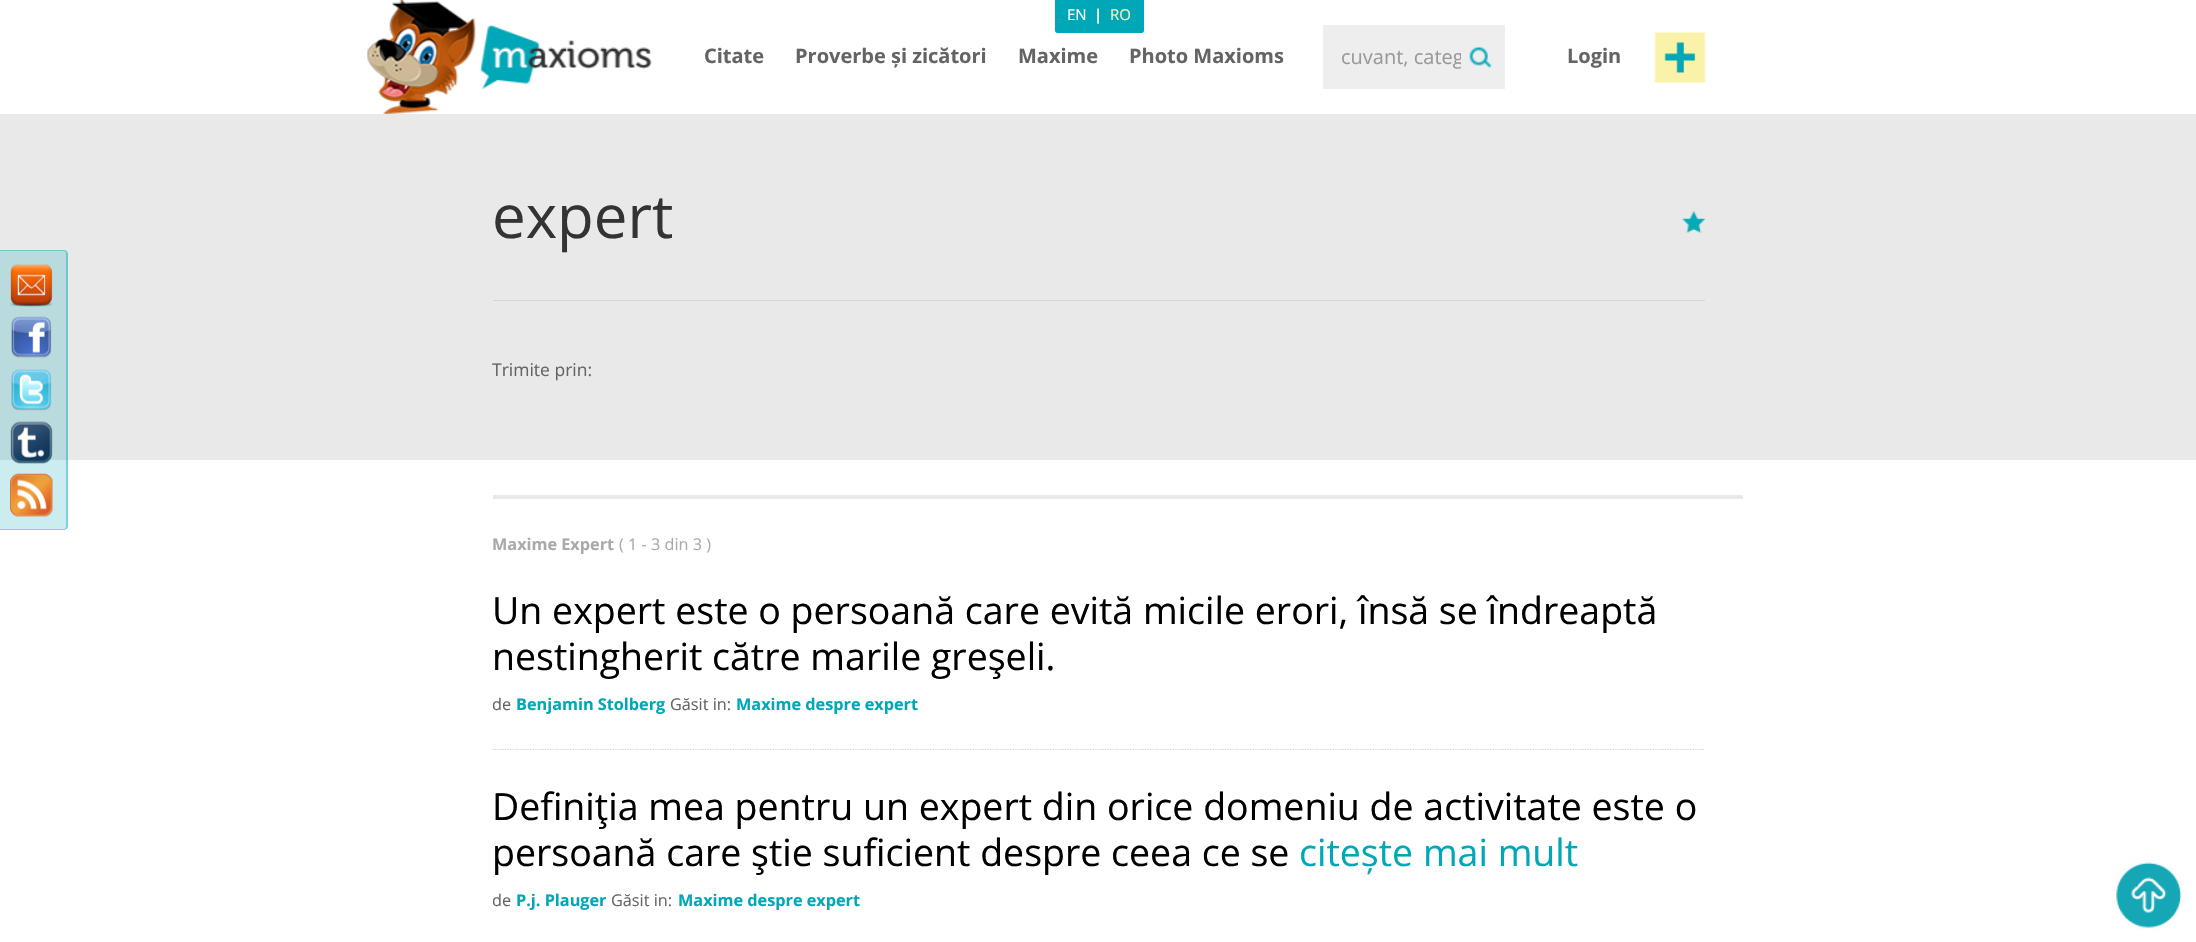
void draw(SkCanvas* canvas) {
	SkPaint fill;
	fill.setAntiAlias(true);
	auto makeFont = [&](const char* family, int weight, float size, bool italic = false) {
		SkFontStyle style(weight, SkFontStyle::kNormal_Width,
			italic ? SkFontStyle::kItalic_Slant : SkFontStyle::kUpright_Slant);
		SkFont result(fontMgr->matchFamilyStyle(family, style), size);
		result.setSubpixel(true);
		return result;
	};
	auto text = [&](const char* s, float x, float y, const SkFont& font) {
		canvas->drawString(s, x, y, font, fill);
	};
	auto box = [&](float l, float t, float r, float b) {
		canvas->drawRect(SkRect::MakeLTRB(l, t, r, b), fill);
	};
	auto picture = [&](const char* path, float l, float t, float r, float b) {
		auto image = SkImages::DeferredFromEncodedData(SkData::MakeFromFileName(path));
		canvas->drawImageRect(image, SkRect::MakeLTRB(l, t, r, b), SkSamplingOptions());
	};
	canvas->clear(0xFFFFFFFF);
	picture("image0.png", 367, 0, 476, 114);
	picture("image1.png", 480, 25, 652, 89);
	fill.setColor(0xFF00A7B6);
	canvas->drawPath(SkPathBuilder().moveTo(1055, 0).lineTo(1144, 0).lineTo(1144, 30.5f).cubicTo(1144, 32, 1143, 33, 1141.5f, 33).lineTo(1057.5f, 33).cubicTo(1056, 33, 1055, 32, 1055, 30.5f).close().detach(), fill);
	fill.setColor(0xFFEEEEEE);
	box(1323, 25, 1505, 89);
	picture("image2.png", 1469, 47, 1492, 68);
	picture("image3.png", 1654, 32, 1706, 83);
	fill.setColor(0xFFE9E9E9);
	box(0, 114, 2196, 460);
	fill.setColor(0xFFD5D5D5);
	box(493, 300, 1705, 301);
	picture("image4.png", 1682, 211, 1705, 233);
	fill.setColor(0x3300A7B6);
	canvas->drawPath(SkPathBuilder().moveTo(0, 250).lineTo(64, 250).cubicTo(66, 250, 68, 252, 68, 254).lineTo(68, 526).cubicTo(68, 528, 66, 530, 64, 530).lineTo(0, 530).close().detach(), fill);
	fill.setColor(0x6600A7B6);
	canvas->drawPath(SkPathBuilder(SkPathFillType::kEvenOdd).moveTo(0, 250).lineTo(64, 250).cubicTo(66, 250, 68, 252, 68, 254).lineTo(68, 526).cubicTo(68, 528, 66, 530, 64, 530).lineTo(0, 530).close().moveTo(0, 251).lineTo(64, 251).cubicTo(65, 251, 66, 252, 66, 254).lineTo(66, 526).cubicTo(66, 528, 65, 529, 64, 529).lineTo(0, 529).close().detach(), fill);
	picture("image5.png", 10, 264, 53, 307);
	picture("image6.png", 11, 316, 52, 358);
	picture("image7.png", 11, 369, 52, 411);
	picture("image8.png", 10, 421, 53, 464);
	picture("image9.png", 10, 473, 53, 517);
	picture("image10.png", 2114, 860, 2184, 930);
	fill.setColor(0xFFE9E9E9);
	box(493, 495, 1743, 499);
	fill.setStyle(SkPaint::kStroke_Style);
	fill.setStrokeWidth(1.2f);
	fill.setColor(0xFFD1D1D1);
	fill.setPathEffect(SkDashPathEffect::Make({{1.25f, 1.25f}}, 0));
	canvas->drawPath(SkPathBuilder().moveTo(492.5f, 749.5f).lineTo(1705, 749.5f).detach(), fill);
	fill.setPathEffect(nullptr);
	auto font1 = makeFont("Open Sans", 400, 15);
	fill.setStyle(SkPaint::kFill_Style);
	fill.setColor(0xFFFFFFFF);
	text("EN", 1067, 20, font1);
	auto font2 = makeFont("Open Sans", 700, 15);
	text("|", 1094, 20, font2);
	fill.setColor(0xFFF7F1B5);
	text("RO", 1110, 20, font1);
	auto font3 = makeFont("Open Sans", 700, 20);
	fill.setColor(0xFF646464);
	text("Citate", 704, 63, font3);
	text("Proverbe și zicători", 795, 63, font3);
	text("Maxime", 1018, 63, font3);
	text("Photo Maxioms", 1129, 63, font3);
	canvas->save();
	canvas->clipRect(SkRect::MakeLTRB(1341, 44, 1461, 71));
	auto font4 = makeFont("Open Sans", 400, 20);
	fill.setColor(0xFF999999);
	text("cuvant, categ", 1341, 64, font4);
	canvas->restore();
	fill.setColor(0xFF646464);
	text("Login", 1567, 63, font3);
	auto font5 = makeFont("Open Sans", 400, 60);
	fill.setColor(0xFF333333);
	text("expert", 492, 238, font5);
	auto font6 = makeFont("Open Sans", 400, 17.5f);
	fill.setColor(0xFF646464);
	text("Trimite prin:", 492, 376, font6);
	auto font7 = makeFont("Open Sans", 700, 16.25f);
	fill.setColor(0xFFAAAAAA);
	text("Maxime Expert", 492, 550, font7);
	auto font8 = makeFont("Open Sans", 400, 16.25f);
	text("( 1 - 3 din 3 )", 619, 550, font8);
	auto font9 = makeFont("Open Sans", 400, 37.5f);
	fill.setColor(0xFF000000);
	text("Un expert este o persoană care evită micile erori, însă se îndreaptă", 492, 624, font9);
	text("nestingherit către marile greşeli.", 492, 670, font9);
	fill.setColor(0xFF646464);
	text("de", 492, 710, font8);
	fill.setColor(0xFF00A7B6);
	text("Benjamin Stolberg", 516, 710, font7);
	fill.setColor(0xFF646464);
	text("Găsit in:", 670, 710, font8);
	fill.setColor(0xFF00A7B6);
	text("Maxime despre expert", 736, 710, font7);
	fill.setColor(0xFF000000);
	text("Definiţia mea pentru un expert din orice domeniu de activitate este o", 492, 820, font9);
	text("persoană care ştie suficient despre ceea ce se", 492, 866, font9);
	fill.setColor(0xFF00A7B6);
	text("citește mai mult", 1299, 866, font9);
	fill.setColor(0xFF646464);
	text("de", 492, 906, font8);
	fill.setColor(0xFF00A7B6);
	text("P.j. Plauger", 516, 906, font7);
	fill.setColor(0xFF646464);
	text("Găsit in:", 611, 906, font8);
	fill.setColor(0xFF00A7B6);
	text("Maxime despre expert", 678, 906, font7);
}
